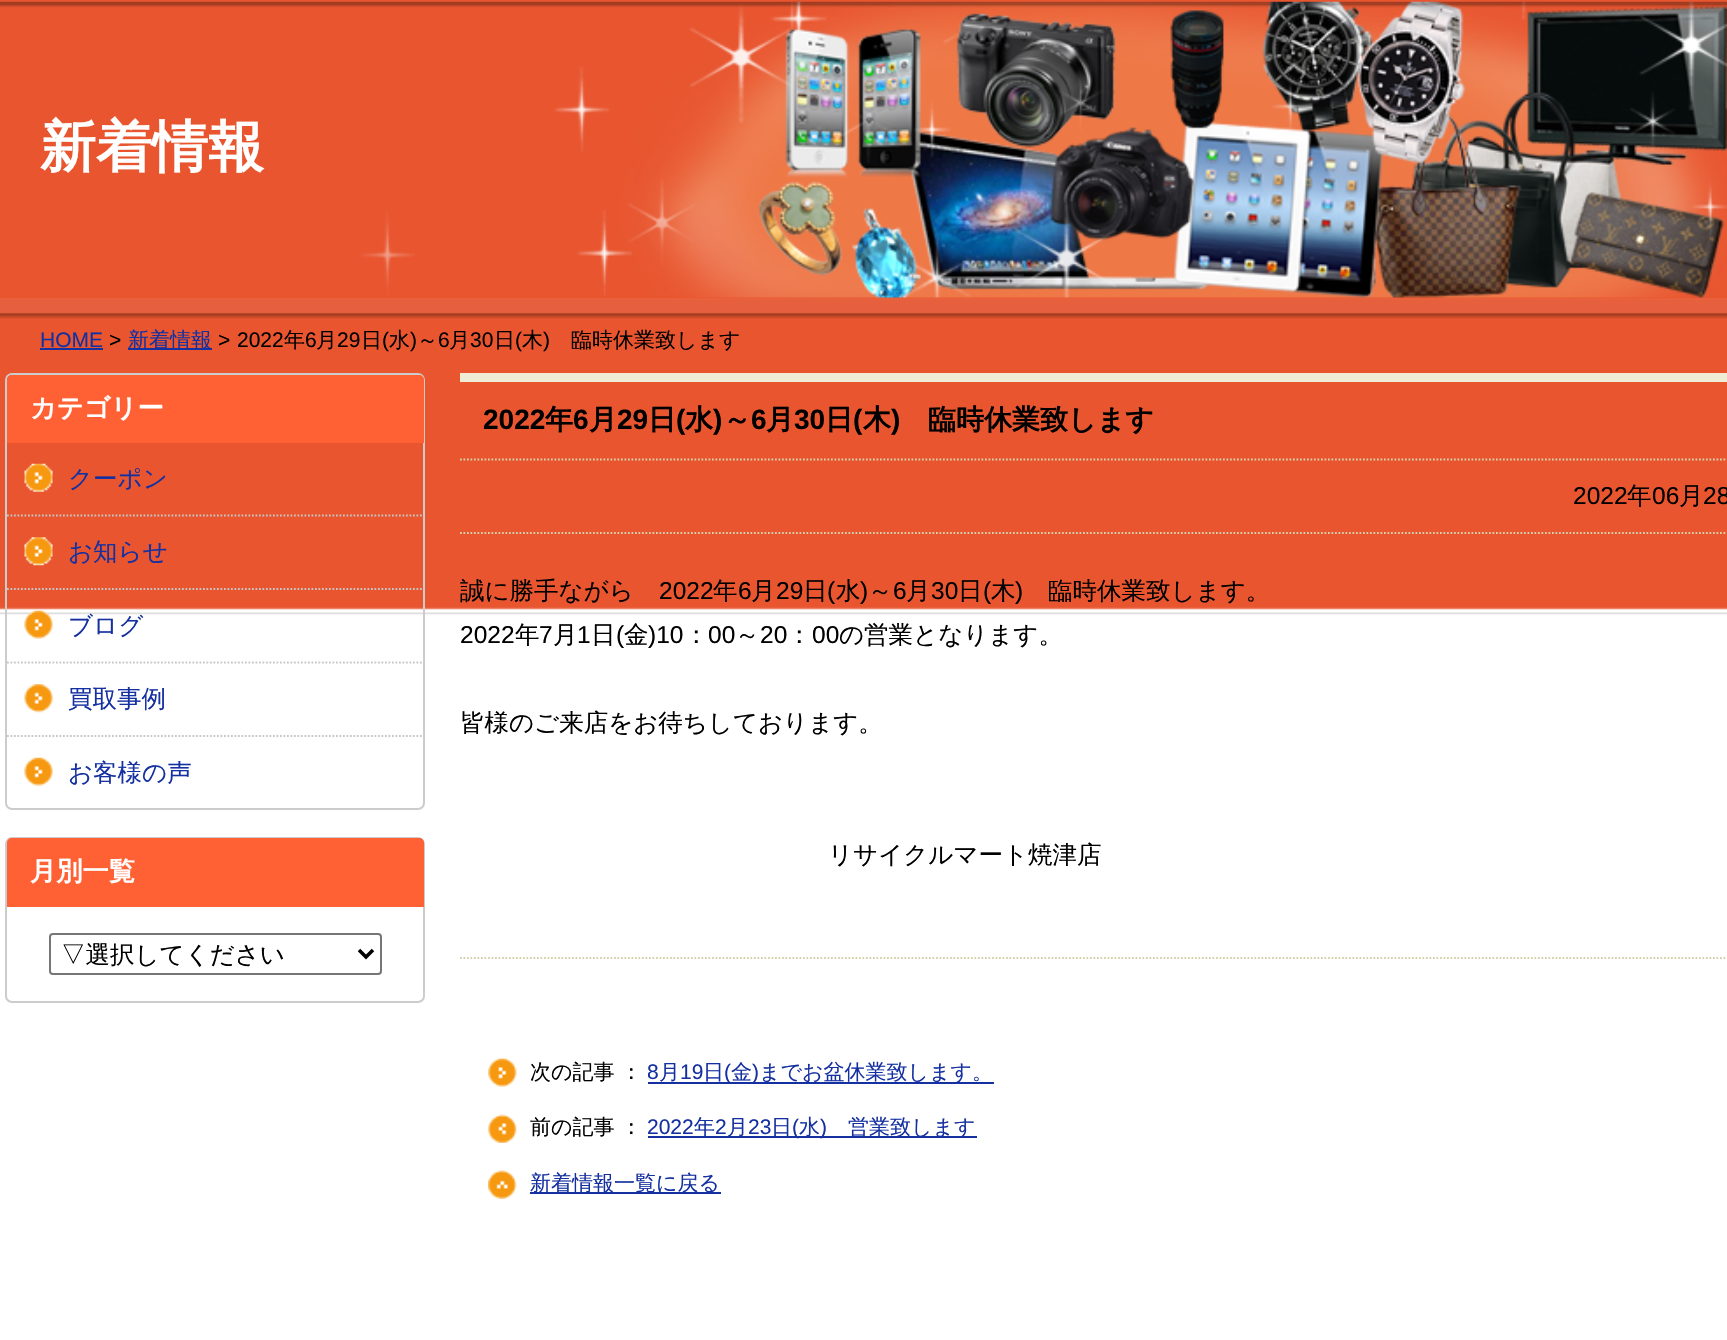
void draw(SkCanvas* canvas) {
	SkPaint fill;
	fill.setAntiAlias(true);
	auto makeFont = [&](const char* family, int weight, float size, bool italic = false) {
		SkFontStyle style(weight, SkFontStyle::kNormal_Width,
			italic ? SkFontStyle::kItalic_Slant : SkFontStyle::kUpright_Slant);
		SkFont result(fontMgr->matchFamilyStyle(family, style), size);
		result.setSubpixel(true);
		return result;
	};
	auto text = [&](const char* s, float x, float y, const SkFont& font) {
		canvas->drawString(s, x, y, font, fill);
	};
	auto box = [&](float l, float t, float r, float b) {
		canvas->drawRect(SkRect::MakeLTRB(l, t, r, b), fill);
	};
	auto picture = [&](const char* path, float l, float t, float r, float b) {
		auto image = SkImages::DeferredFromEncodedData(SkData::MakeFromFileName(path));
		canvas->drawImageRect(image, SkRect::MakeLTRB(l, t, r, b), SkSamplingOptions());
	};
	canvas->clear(0xFFFFFFFF);
	picture("image0.png", 0, 298, 1727, 615);
	fill.setColor(0xFFE8552F);
	box(0, 0, 1727, 298);
	picture("image1.png", 0, 1, 1727, 298);
	fill.setColor(0xFF1530A0);
	box(40, 348, 103, 350);
	box(128, 348, 212, 350);
	fill.setStyle(SkPaint::kStroke_Style);
	fill.setStrokeWidth(2);
	fill.setColor(0xFFCCCCCC);
	canvas->drawRoundRect(SkRect::MakeLTRB(6, 374, 424, 809), 6, 6, fill);
	fill.setStyle(SkPaint::kFill_Style);
	fill.setColor(0xFFFF6134);
	canvas->drawPath(SkPathBuilder().moveTo(12, 375).lineTo(419, 375).cubicTo(422, 375, 424, 377, 424, 380).lineTo(424, 443).lineTo(7, 443).lineTo(7, 380).cubicTo(7, 377, 9, 375, 12, 375).close().detach(), fill);
	fill.setStyle(SkPaint::kStroke_Style);
	fill.setStrokeWidth(1.8f);
	fill.setColor(0xFFC6C6C6);
	fill.setPathEffect(SkDashPathEffect::Make({{1.75f, 1.75f}}, 0));
	canvas->drawPath(SkPathBuilder().moveTo(7, 515.5f).lineTo(423.5f, 515.5f).detach(), fill);
	fill.setPathEffect(nullptr);
	picture("image2.png", 24, 463, 53, 492);
	fill.setPathEffect(SkDashPathEffect::Make({{1.75f, 1.75f}}, 0));
	canvas->drawPath(SkPathBuilder().moveTo(7, 589).lineTo(423.5f, 589).detach(), fill);
	fill.setPathEffect(nullptr);
	picture("image3.png", 24, 537, 53, 566);
	fill.setPathEffect(SkDashPathEffect::Make({{1.75f, 1.75f}}, 0));
	canvas->drawPath(SkPathBuilder().moveTo(7, 662.5f).lineTo(423.5f, 662.5f).detach(), fill);
	fill.setPathEffect(nullptr);
	picture("image4.png", 24, 610, 53, 639);
	fill.setPathEffect(SkDashPathEffect::Make({{1.75f, 1.75f}}, 0));
	canvas->drawPath(SkPathBuilder().moveTo(7, 736).lineTo(423.5f, 736).detach(), fill);
	fill.setPathEffect(nullptr);
	picture("image5.png", 24, 684, 53, 713);
	picture("image6.png", 24, 757, 53, 786);
	fill.setStrokeWidth(2);
	fill.setColor(0xFFCCCCCC);
	canvas->drawRoundRect(SkRect::MakeLTRB(6, 838, 424, 1002), 6, 6, fill);
	fill.setStyle(SkPaint::kFill_Style);
	fill.setColor(0xFFFF6134);
	canvas->drawPath(SkPathBuilder().moveTo(12, 838).lineTo(419, 838).cubicTo(422, 838, 424, 840, 424, 843).lineTo(424, 907).lineTo(7, 907).lineTo(7, 843).cubicTo(7, 840, 9, 838, 12, 838).close().detach(), fill);
	fill.setStyle(SkPaint::kStroke_Style);
	fill.setColor(0xFF767676);
	canvas->drawRoundRect(SkRect::MakeLTRB(50, 934, 381, 974), 3, 3, fill);
	fill.setStrokeWidth(3.5f);
	fill.setColor(0xFF000000);
	canvas->drawPath(SkPathBuilder().moveTo(359, 950).lineTo(366, 957).lineTo(373, 950).detach(), fill);
	fill.setStyle(SkPaint::kFill_Style);
	fill.setColor(0xFFF0EDD6);
	box(460, 373, 1727, 382);
	fill.setStyle(SkPaint::kStroke_Style);
	fill.setStrokeWidth(1.8f);
	fill.setColor(0xFFD5D0AA);
	fill.setPathEffect(SkDashPathEffect::Make({{1.75f, 1.75f}}, 0));
	canvas->drawPath(SkPathBuilder().moveTo(460, 958).lineTo(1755, 958).detach(), fill);
	fill.setPathEffect(nullptr);
	fill.setPathEffect(SkDashPathEffect::Make({{1.75f, 1.75f}}, 0));
	canvas->drawPath(SkPathBuilder().moveTo(460, 459.5f).lineTo(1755, 459.5f).detach(), fill);
	fill.setPathEffect(nullptr);
	fill.setPathEffect(SkDashPathEffect::Make({{1.75f, 1.75f}}, 0));
	canvas->drawPath(SkPathBuilder().moveTo(460, 533).lineTo(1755, 533).detach(), fill);
	fill.setPathEffect(nullptr);
	picture("image7.png", 488, 1058, 517, 1087);
	fill.setStyle(SkPaint::kFill_Style);
	fill.setColor(0xFF1530A0);
	box(648, 1082, 994, 1084);
	picture("image8.png", 487, 1114, 517, 1143);
	box(648, 1136, 977, 1138);
	picture("image9.png", 488, 1170, 517, 1199);
	box(530, 1192, 721, 1194);
	auto font1 = makeFont("WenQuanYi Zen Hei", 700, 56);
	fill.setColor(0xFFFFFFFF);
	text("新着情報", 40, 166, font1);
	auto font2 = makeFont("Liberation Sans", 400, 21);
	fill.setColor(0xFF1530A0);
	text("HOME", 40, 347, font2);
	fill.setColor(0xFF000000);
	text(">", 109, 347, font2);
	auto font3 = makeFont("WenQuanYi Zen Hei", 500, 21);
	fill.setColor(0xFF1530A0);
	text("新着情報", 128, 347, font3);
	fill.setColor(0xFF000000);
	text(">", 218, 347, font2);
	text("2022", 237, 347, font2);
	text("年", 284, 347, font3);
	text("6", 305, 347, font2);
	text("月", 316, 347, font3);
	text("29", 337, 347, font2);
	text("日", 361, 347, font3);
	text("(", 382, 347, font2);
	text("水", 389, 347, font3);
	text(")", 410, 347, font2);
	text("～", 417, 347, font3);
	text("6", 438, 347, font2);
	text("月", 449, 347, font3);
	text("30", 470, 347, font2);
	text("日", 494, 347, font3);
	text("(", 515, 347, font2);
	text("木", 522, 347, font3);
	text(")", 543, 347, font2);
	text("臨時休業致します", 571, 347, font3);
	auto font4 = makeFont("WenQuanYi Zen Hei", 700, 26.25f);
	fill.setColor(0xFFFFFFFF);
	text("カテゴリー", 30, 417, font4);
	auto font5 = makeFont("WenQuanYi Zen Hei", 500, 24.5f);
	fill.setColor(0xFF1530A0);
	text("クーポン", 68, 487, font5);
	text("お知らせ", 68, 560, font5);
	text("ブログ", 68, 634, font5);
	text("買取事例", 68, 707, font5);
	text("お客様の声", 68, 781, font5);
	fill.setColor(0xFFFFFFFF);
	text("月別一覧", 30, 880, font4);
	fill.setColor(0xFF000000);
	text("▽選択してください", 61, 963, font5);
	auto font6 = makeFont("Liberation Sans", 700, 28);
	text("2022", 483, 429, font6);
	auto font7 = makeFont("WenQuanYi Zen Hei", 700, 28);
	text("年", 545, 429, font7);
	text("6", 573, 429, font6);
	text("月", 589, 429, font7);
	text("29", 617, 429, font6);
	text("日", 648, 429, font7);
	text("(", 676, 429, font6);
	text("水", 685, 429, font7);
	text(")", 713, 429, font6);
	text("～", 723, 429, font7);
	text("6", 751, 429, font6);
	text("月", 766, 429, font7);
	text("30", 794, 429, font6);
	text("日", 825, 429, font7);
	text("(", 853, 429, font6);
	text("木", 863, 429, font7);
	text(")", 891, 429, font6);
	text("臨時休業致します", 928, 429, font7);
	auto font8 = makeFont("Liberation Sans", 400, 24.5f);
	text("2022", 1573, 504, font8);
	text("年", 1627, 504, font5);
	text("06", 1652, 504, font8);
	text("月", 1679, 504, font5);
	text("28", 1703, 504, font8);
	text("誠に勝手ながら", 460, 599, font5);
	text("2022", 659, 599, font8);
	text("年", 713, 599, font5);
	text("6", 738, 599, font8);
	text("月", 751, 599, font5);
	text("29", 776, 599, font8);
	text("日", 803, 599, font5);
	text("(", 827, 599, font8);
	text("水", 836, 599, font5);
	text(")", 860, 599, font8);
	text("～", 868, 599, font5);
	text("6", 893, 599, font8);
	text("月", 906, 599, font5);
	text("30", 931, 599, font8);
	text("日", 958, 599, font5);
	text("(", 983, 599, font8);
	text("木", 991, 599, font5);
	text(")", 1015, 599, font8);
	text("臨時休業致します。", 1048, 599, font5);
	text("2022", 460, 643, font8);
	text("年", 515, 643, font5);
	text("7", 539, 643, font8);
	text("月", 553, 643, font5);
	text("1", 577, 643, font8);
	text("日", 591, 643, font5);
	text("(", 616, 643, font8);
	text("金", 624, 643, font5);
	text(")10", 648, 643, font8);
	text("：", 684, 643, font5);
	text("00", 708, 643, font8);
	text("～", 735, 643, font5);
	text("20", 760, 643, font8);
	text("：", 787, 643, font5);
	text("00", 812, 643, font8);
	text("の営業となります。", 839, 643, font5);
	text("皆様のご来店をお待ちしております。", 460, 731, font5);
	text("リサイクルマート焼津店", 828, 863, font5);
	text("次の記事 ：", 530, 1079, font3);
	fill.setColor(0xFF1530A0);
	text("8", 647, 1079, font2);
	text("月", 659, 1079, font3);
	text("19", 680, 1079, font2);
	text("日", 703, 1079, font3);
	text("(", 724, 1079, font2);
	text("金", 731, 1079, font3);
	text(")", 752, 1079, font2);
	text("までお盆休業致します。", 759, 1079, font3);
	fill.setColor(0xFF000000);
	text("前の記事 ：", 530, 1134, font3);
	fill.setColor(0xFF1530A0);
	text("2022", 647, 1134, font2);
	text("年", 694, 1134, font3);
	text("2", 715, 1134, font2);
	text("月", 727, 1134, font3);
	text("23", 748, 1134, font2);
	text("日", 771, 1134, font3);
	text("(", 792, 1134, font2);
	text("水", 799, 1134, font3);
	text(")", 820, 1134, font2);
	text("営業致します", 848, 1134, font3);
	text("新着情報一覧に戻る", 530, 1190, font3);
}
